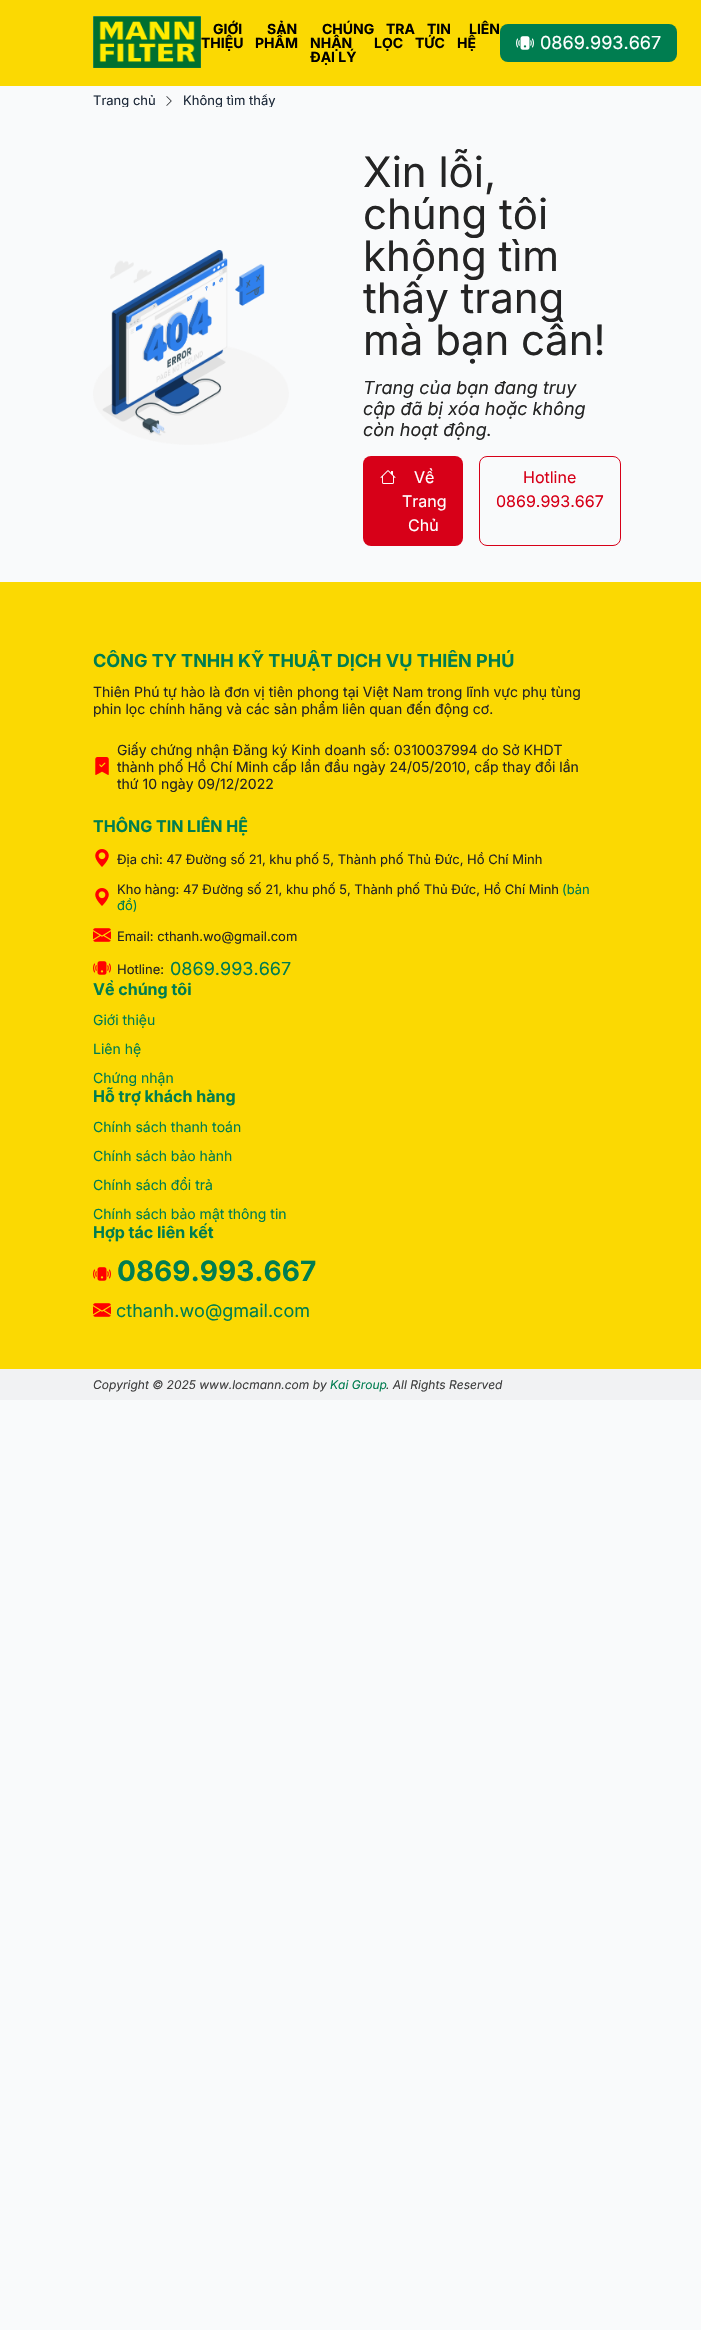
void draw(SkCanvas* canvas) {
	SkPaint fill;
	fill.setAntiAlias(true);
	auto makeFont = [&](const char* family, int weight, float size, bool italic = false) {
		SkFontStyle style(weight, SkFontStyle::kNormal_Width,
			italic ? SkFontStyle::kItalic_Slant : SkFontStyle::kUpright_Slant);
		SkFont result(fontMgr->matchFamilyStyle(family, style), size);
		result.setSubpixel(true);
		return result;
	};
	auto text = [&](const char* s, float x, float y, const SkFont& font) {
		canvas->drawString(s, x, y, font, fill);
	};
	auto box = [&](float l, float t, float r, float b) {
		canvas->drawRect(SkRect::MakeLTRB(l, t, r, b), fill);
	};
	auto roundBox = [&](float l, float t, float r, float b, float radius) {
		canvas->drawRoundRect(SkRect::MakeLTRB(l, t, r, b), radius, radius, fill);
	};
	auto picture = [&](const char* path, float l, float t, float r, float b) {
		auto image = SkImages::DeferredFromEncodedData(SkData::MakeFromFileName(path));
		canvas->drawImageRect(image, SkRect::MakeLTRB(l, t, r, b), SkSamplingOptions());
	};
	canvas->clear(0xFFF9FAFB);
	fill.setColor(0xFFFBD902);
	box(0, 0, 701, 86);
	picture("image0.png", 93, 16, 201, 68);
	fill.setColor(0xFF007D50);
	roundBox(500, 24, 677, 62, 8);
	picture("image1.png", 516, 36, 534, 50);
	picture("image2.png", 166, 96, 172, 106);
	picture("image3.png", 93, 250, 289, 445);
	fill.setColor(0xFFD70018);
	roundBox(363, 456, 463, 546, 8);
	picture("image4.png", 380, 470, 396, 484);
	fill.setStyle(SkPaint::kStroke_Style);
	fill.setStrokeWidth(1);
	canvas->drawRoundRect(SkRect::MakeLTRB(479.5f, 456.5f, 620.5f, 545.5f), 7.5f, 7.5f, fill);
	fill.setStyle(SkPaint::kFill_Style);
	fill.setColor(0xFFFBD902);
	box(0, 582, 701, 1369);
	picture("image5.png", 95, 757, 109, 775);
	picture("image6.png", 95, 849, 109, 867);
	picture("image6.png", 95, 888, 109, 906);
	picture("image7.png", 93, 928, 111, 942);
	picture("image8.png", 93, 961, 111, 975);
	picture("image8.png", 93, 1267, 111, 1281);
	picture("image7.png", 93, 1303, 111, 1317);
	fill.setColor(0xFFF1F2F3);
	box(0, 1369, 701, 1400);
	auto font1 = makeFont("Inter", 700, 14);
	fill.setColor(0xFF000000);
	text("GIỚI", 213, 34, font1);
	text("THIỆU", 201, 48, font1);
	text("SẢN", 267, 34, font1);
	text("PHẨM", 255, 48, font1);
	text("CHÚNG", 322, 34, font1);
	text("NHẬN", 310, 48, font1);
	text("ĐẠI LÝ", 310, 62, font1);
	text("TRA", 386, 34, font1);
	text("LỌC", 374, 48, font1);
	text("TIN", 427, 34, font1);
	text("TỨC", 415, 48, font1);
	text("LIÊN", 469, 34, font1);
	text("HỆ", 457, 48, font1);
	auto font2 = makeFont("Inter", 400, 18);
	fill.setColor(0xFFFFFFFF);
	text("0869.993.667", 540, 49, font2);
	canvas->save();
	canvas->clipRect(SkRect::MakeLTRB(93, 94, 609, 107));
	auto font3 = makeFont("Inter", 400, 13);
	fill.setColor(0xFF1D2939);
	text("Trang chủ", 93, 105, font3);
	text("Không tìm thấy", 183, 105, font3);
	canvas->restore();
	auto font4 = makeFont("Inter", 400, 42);
	fill.setColor(0xFF242424);
	text("Xin lỗi,", 363, 187, font4);
	text("chúng tôi", 363, 229, font4);
	text("không tìm", 363, 271, font4);
	text("thấy trang", 363, 313, font4);
	text("mà bạn cần!", 363, 355, font4);
	auto font5 = makeFont("Inter", 400, 18, true);
	text("Trang của bạn đang truy", 363, 394, font5);
	text("cập đã bị xóa hoặc không", 363, 415, font5);
	text("còn hoạt động.", 363, 436, font5);
	auto font6 = makeFont("Inter", 400, 16);
	fill.setColor(0xFFFFFFFF);
	text("Về", 414, 483, font6);
	text("Trang", 402, 507, font6);
	text("Chủ", 408, 531, font6);
	fill.setColor(0xFFD70018);
	text("Hotline", 523, 483, font6);
	text("0869.993.667", 496, 507, font6);
	auto font7 = makeFont("Inter", 700, 18);
	fill.setColor(0xFF007D50);
	text("CÔNG TY TNHH KỸ THUẬT DỊCH VỤ THIÊN PHÚ", 93, 667, font7);
	auto font8 = makeFont("Inter", 400, 14);
	fill.setColor(0xFF242424);
	text("Thiên Phú tự hào là đơn vị tiên phong tại Việt Nam trong lĩnh vực phụ tùng", 93, 697, font8);
	text("phin lọc chính hãng và các sản phẩm liên quan đến động cơ.", 93, 714, font8);
	text("Giấy chứng nhận Đăng ký Kinh doanh số: 0310037994 do Sở KHDT", 117, 755, font8);
	text("thành phố Hồ Chí Minh cấp lần đầu ngày 24/05/2010, cấp thay đổi lần", 117, 772, font8);
	text("thứ 10 ngày 09/12/2022", 117, 789, font8);
	auto font9 = makeFont("Inter", 700, 16);
	fill.setColor(0xFF007D50);
	text("THÔNG TIN LIÊN HỆ", 93, 832, font9);
	fill.setColor(0xFF242424);
	text("Địa chỉ: 47 Đường số 21, khu phố 5, Thành phố Thủ Đức, Hồ Chí Minh", 117, 864, font3);
	text("Kho hàng: 47 Đường số 21, khu phố 5, Thành phố Thủ Đức, Hồ Chí Minh", 117, 894, font3);
	fill.setColor(0xFF007D50);
	text("(bản", 562, 894, font3);
	text("đồ)", 117, 910, font3);
	fill.setColor(0xFF242424);
	text("Email: cthanh.wo@gmail.com", 117, 941, font3);
	text("Hotline:", 117, 974, font3);
	fill.setColor(0xFF007D50);
	text("0869.993.667", 170, 975, font2);
	text("Về chúng tôi", 93, 995, font9);
	text("Giới thiệu", 93, 1025, font8);
	text("Liên hệ", 93, 1054, font8);
	text("Chứng nhận", 93, 1083, font8);
	text("Hỗ trợ khách hàng", 93, 1102, font9);
	text("Chính sách thanh toán", 93, 1132, font8);
	text("Chính sách bảo hành", 93, 1161, font8);
	text("Chính sách đổi trả", 93, 1190, font8);
	text("Chính sách bảo mật thông tin", 93, 1219, font8);
	text("Hợp tác liên kết", 93, 1238, font9);
	auto font10 = makeFont("Inter", 700, 28);
	text("0869.993.667", 117, 1281, font10);
	text("cthanh.wo@gmail.com", 116, 1317, font2);
	auto font11 = makeFont("Inter", 400, 12, true);
	fill.setColor(0xFF3E3E3E);
	text("Copyright © 2025 www.locmann.com by", 93, 1389, font11);
	fill.setColor(0xFF007D50);
	text("Kai Group", 330, 1389, font11);
	fill.setColor(0xFF3E3E3E);
	text(". All Rights Reserved", 386, 1389, font11);
}
